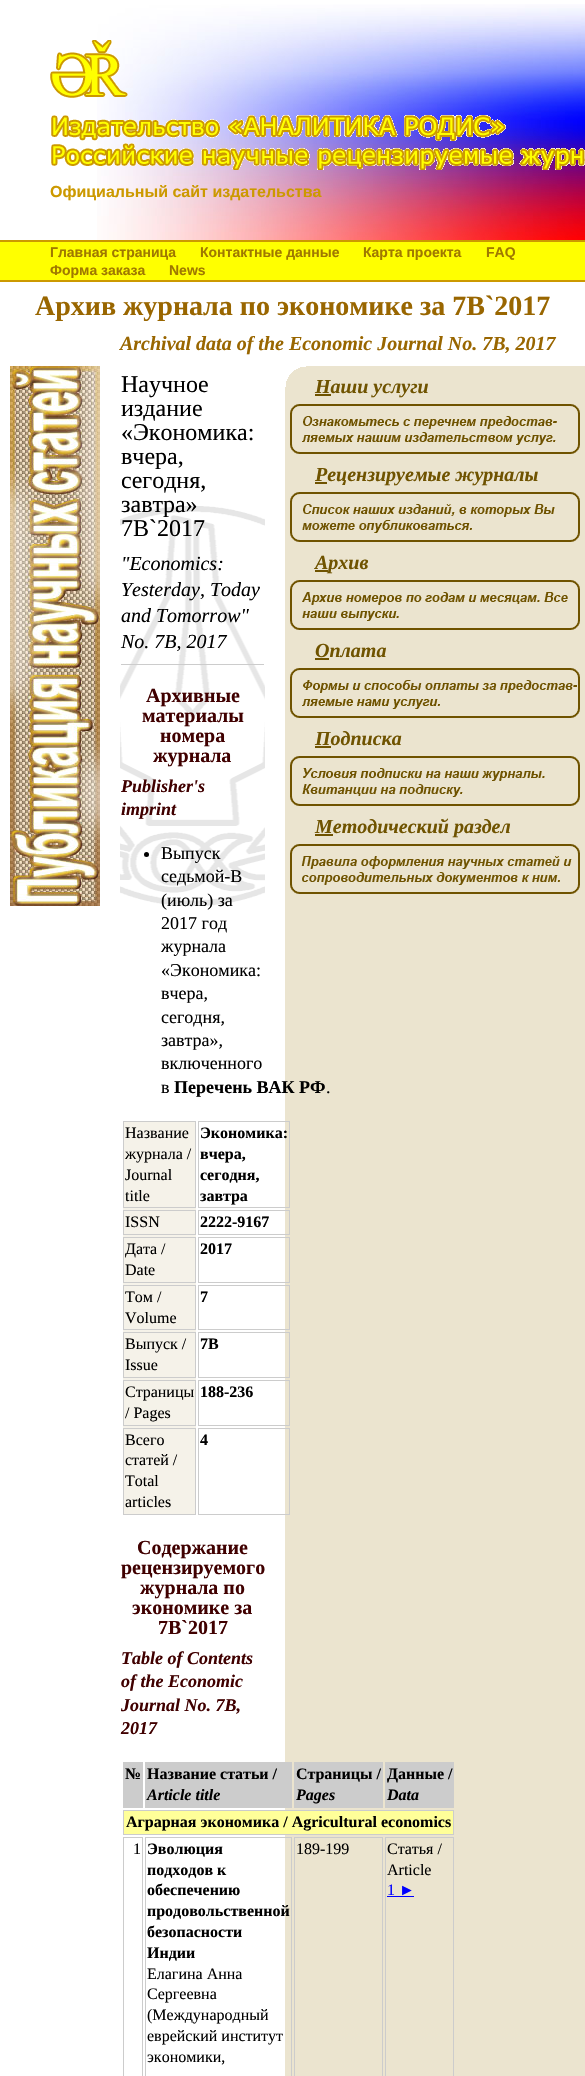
void draw(SkCanvas* canvas) {
	SkPaint fill;
	fill.setAntiAlias(true);
	auto makeFont = [&](const char* family, int weight, float size, bool italic = false) {
		SkFontStyle style(weight, SkFontStyle::kNormal_Width,
			italic ? SkFontStyle::kItalic_Slant : SkFontStyle::kUpright_Slant);
		SkFont result(fontMgr->matchFamilyStyle(family, style), size);
		result.setSubpixel(true);
		return result;
	};
	auto text = [&](const char* s, float x, float y, const SkFont& font) {
		canvas->drawString(s, x, y, font, fill);
	};
	auto box = [&](float l, float t, float r, float b) {
		canvas->drawRect(SkRect::MakeLTRB(l, t, r, b), fill);
	};
	auto picture = [&](const char* path, float l, float t, float r, float b) {
		auto image = SkImages::DeferredFromEncodedData(SkData::MakeFromFileName(path));
		canvas->drawImageRect(image, SkRect::MakeLTRB(l, t, r, b), SkSamplingOptions());
	};
	canvas->clear(0xFFFFFFFF);
	picture("image0.png", 97, 4, 585, 240);
	picture("image1.png", 50, 40, 585, 170);
	fill.setColor(0xFFFFFF00);
	box(0, 242, 585, 280);
	fill.setColor(0xFFCC9900);
	box(0, 240, 585, 242);
	box(0, 280, 585, 282);
	fill.setColor(0xFFEBE4CF);
	box(285, 366, 585, 2076);
	picture("image2.png", 10, 366, 100, 906);
	picture("image3.png", 120, 506, 265, 906);
	fill.setColor(0xFFCCCCCC);
	box(121, 664, 264, 665);
	fill.setColor(0xFF000000);
	canvas->drawCircle(146.5f, 854.5f, 2.5f, fill);
	fill.setColor(0xFFF5F2E9);
	box(123, 1122, 196, 1514);
	fill.setStyle(SkPaint::kStroke_Style);
	fill.setStrokeWidth(1);
	fill.setColor(0xFFCCCCCC);
	canvas->drawRect(SkRect::MakeLTRB(123.5f, 1121.5f, 195.5f, 1207.5f), fill);
	canvas->drawRect(SkRect::MakeLTRB(198.5f, 1121.5f, 289.5f, 1207.5f), fill);
	canvas->drawRect(SkRect::MakeLTRB(123.5f, 1210.5f, 195.5f, 1234.5f), fill);
	canvas->drawRect(SkRect::MakeLTRB(198.5f, 1210.5f, 289.5f, 1234.5f), fill);
	canvas->drawRect(SkRect::MakeLTRB(123.5f, 1237.5f, 195.5f, 1282.5f), fill);
	canvas->drawRect(SkRect::MakeLTRB(198.5f, 1237.5f, 289.5f, 1282.5f), fill);
	canvas->drawRect(SkRect::MakeLTRB(123.5f, 1285.5f, 195.5f, 1329.5f), fill);
	canvas->drawRect(SkRect::MakeLTRB(198.5f, 1285.5f, 289.5f, 1329.5f), fill);
	canvas->drawRect(SkRect::MakeLTRB(123.5f, 1332.5f, 195.5f, 1377.5f), fill);
	canvas->drawRect(SkRect::MakeLTRB(198.5f, 1332.5f, 289.5f, 1377.5f), fill);
	canvas->drawRect(SkRect::MakeLTRB(123.5f, 1380.5f, 195.5f, 1425.5f), fill);
	canvas->drawRect(SkRect::MakeLTRB(198.5f, 1380.5f, 289.5f, 1425.5f), fill);
	canvas->drawRect(SkRect::MakeLTRB(123.5f, 1428.5f, 195.5f, 1514.5f), fill);
	canvas->drawRect(SkRect::MakeLTRB(198.5f, 1428.5f, 289.5f, 1514.5f), fill);
	fill.setStyle(SkPaint::kFill_Style);
	box(123, 1762, 143, 1808);
	box(145, 1762, 292, 1808);
	box(294, 1762, 383, 1808);
	box(385, 1762, 454, 1808);
	fill.setColor(0xFFFFFF99);
	canvas->drawRect(SkRect::MakeLTRB(123.5f, 1810.5f, 453.5f, 1834.5f), fill);
	fill.setStyle(SkPaint::kStroke_Style);
	fill.setColor(0xFFCCCCCC);
	canvas->drawRect(SkRect::MakeLTRB(123.5f, 1810.5f, 453.5f, 1834.5f), fill);
	canvas->drawRect(SkRect::MakeLTRB(123.5f, 1837.5f, 142.5f, 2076.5f), fill);
	canvas->drawRect(SkRect::MakeLTRB(145.5f, 1837.5f, 291.5f, 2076.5f), fill);
	canvas->drawRect(SkRect::MakeLTRB(294.5f, 1837.5f, 382.5f, 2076.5f), fill);
	canvas->drawRect(SkRect::MakeLTRB(385.5f, 1837.5f, 453.5f, 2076.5f), fill);
	fill.setStyle(SkPaint::kFill_Style);
	fill.setColor(0xFF0000FF);
	box(387, 1896, 414, 1897);
	picture("image4.png", 285, 366, 306, 387);
	picture("image5.png", 290, 404, 580, 454);
	fill.setColor(0xFF6F5300);
	box(315, 394, 331, 396);
	picture("image6.png", 290, 492, 580, 542);
	box(315, 482, 327, 484);
	picture("image7.png", 290, 580, 580, 630);
	box(315, 570, 328, 572);
	picture("image8.png", 290, 668, 580, 718);
	box(315, 658, 329, 660);
	picture("image9.png", 290, 756, 580, 806);
	box(315, 746, 331, 748);
	picture("image10.png", 290, 844, 580, 894);
	box(315, 834, 333, 836);
	auto font1 = makeFont("Liberation Sans", 700, 16);
	fill.setColor(0xFFCC9900);
	text("Официальный сайт издательства", 50, 197, font1);
	auto font2 = makeFont("Liberation Sans", 700, 14);
	fill.setColor(0xFF9F7800);
	text("Главная страница", 50, 257, font2);
	text("Контактные данные", 200, 257, font2);
	text("Карта проекта", 363, 257, font2);
	text("FAQ", 486, 257, font2);
	text("Форма заказа", 50, 275, font2);
	text("News", 169, 275, font2);
	auto font3 = makeFont("Liberation Serif", 700, 28);
	fill.setColor(0xFF996600);
	text("Архив журнала по экономике за 7B`2017", 35, 315, font3);
	auto font4 = makeFont("Liberation Serif", 700, 20, true);
	text("Archival data of the Economic Journal No. 7B, 2017", 120, 350, font4);
	auto font5 = makeFont("Liberation Serif", 400, 24);
	fill.setColor(0xFF000000);
	text("Научное", 121, 392, font5);
	text("издание", 121, 416, font5);
	text("«Экономика:", 121, 440, font5);
	text("вчера,", 121, 464, font5);
	text("сегодня,", 121, 488, font5);
	text("завтра»", 121, 512, font5);
	text("7B`2017", 121, 536, font5);
	auto font6 = makeFont("Liberation Serif", 400, 20, true);
	text("\"Economics:", 121, 570, font6);
	text("Yesterday, Today", 121, 596, font6);
	text("and Tomorrow\"", 121, 622, font6);
	text("No. 7B, 2017", 121, 648, font6);
	auto font7 = makeFont("Liberation Serif", 700, 20);
	fill.setColor(0xFF400000);
	text("Архивные", 146, 702, font7);
	text("материалы", 142, 722, font7);
	text("номера", 160, 742, font7);
	text("журнала", 153, 762, font7);
	auto font8 = makeFont("Liberation Serif", 700, 18, true);
	text("Publisher's", 121, 792, font8);
	text("imprint", 121, 815, font8);
	auto font9 = makeFont("Liberation Serif", 400, 18);
	fill.setColor(0xFF000000);
	text("Выпуск", 161, 859, font9);
	text("седьмой-B", 161, 882, font9);
	text("(июль) за", 161, 906, font9);
	text("2017 год", 161, 929, font9);
	text("журнала", 161, 952, font9);
	text("«Экономика:", 161, 976, font9);
	text("вчера,", 161, 999, font9);
	text("сегодня,", 161, 1023, font9);
	text("завтра»,", 161, 1046, font9);
	text("включенного", 161, 1069, font9);
	text("в", 161, 1093, font9);
	auto font10 = makeFont("Liberation Serif", 700, 18);
	text("Перечень ВАК РФ", 174, 1093, font10);
	text(".", 326, 1093, font9);
	auto font11 = makeFont("Liberation Serif", 400, 16);
	text("Название", 125, 1138, font11);
	text("журнала /", 125, 1159, font11);
	text("Journal", 125, 1180, font11);
	text("title", 125, 1201, font11);
	auto font12 = makeFont("Liberation Serif", 700, 16);
	text("Экономика:", 200, 1138, font12);
	text("вчера,", 200, 1159, font12);
	text("сегодня,", 200, 1180, font12);
	text("завтра", 200, 1201, font12);
	text("ISSN", 125, 1227, font11);
	text("2222-9167", 200, 1227, font12);
	text("Дата /", 125, 1254, font11);
	text("Date", 125, 1275, font11);
	text("2017", 200, 1254, font12);
	text("Том /", 125, 1302, font11);
	text("Volume", 125, 1323, font11);
	text("7", 200, 1302, font12);
	text("Выпуск /", 125, 1349, font11);
	text("Issue", 125, 1370, font11);
	text("7B", 200, 1349, font12);
	text("Страницы", 125, 1397, font11);
	text("/ Pages", 125, 1418, font11);
	text("188-236", 200, 1397, font12);
	text("Всего", 125, 1445, font11);
	text("статей /", 125, 1465, font11);
	text("Total", 125, 1486, font11);
	text("articles", 125, 1507, font11);
	text("4", 200, 1445, font12);
	fill.setColor(0xFF400000);
	text("Содержание", 137, 1554, font7);
	text("рецензируемого", 121, 1574, font7);
	text("журнала по", 140, 1594, font7);
	text("экономике за", 132, 1614, font7);
	text("7B`2017", 158, 1634, font7);
	text("Table of Contents", 121, 1664, font8);
	text("of the Economic", 121, 1687, font8);
	text("Journal No. 7B,", 121, 1711, font8);
	text("2017", 121, 1734, font8);
	fill.setColor(0xFF000000);
	text("№", 125, 1779, font12);
	text("Название статьи /", 147, 1779, font12);
	auto font13 = makeFont("Liberation Serif", 700, 16, true);
	text("Article title", 147, 1800, font13);
	text("Страницы /", 296, 1779, font12);
	text("Pages", 296, 1800, font13);
	text("Данные /", 387, 1779, font12);
	text("Data", 387, 1800, font13);
	text("Аграрная экономика / Agricultural economics", 126, 1827, font12);
	text("1", 133, 1854, font11);
	text("Эволюция", 147, 1854, font12);
	text("подходов к", 147, 1875, font12);
	text("обеспечению", 147, 1895, font12);
	text("продовольственной", 147, 1916, font12);
	text("безопасности", 147, 1937, font12);
	text("Индии", 147, 1958, font12);
	text("Елагина Анна", 147, 1979, font11);
	text("Сергеевна", 147, 1999, font11);
	text("(Международный", 147, 2020, font11);
	text("еврейский институт", 147, 2041, font11);
	text("экономики,", 147, 2062, font11);
	text("189-199", 296, 1854, font11);
	text("Статья /", 387, 1854, font11);
	text("Article", 387, 1875, font11);
	fill.setColor(0xFF0000FF);
	text("1 ►", 387, 1895, font11);
	fill.setColor(0xFF6F5300);
	text("Наши услуги", 315, 393, font4);
	text("Рецензируемые журналы", 315, 481, font4);
	text("Архив", 315, 569, font4);
	text("Оплата", 315, 657, font4);
	text("Подписка", 315, 745, font4);
	text("Методический раздел", 315, 833, font4);
}
